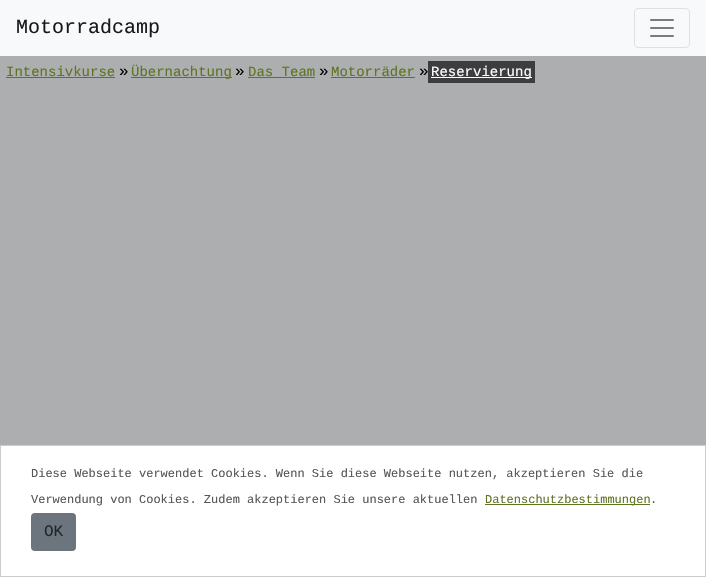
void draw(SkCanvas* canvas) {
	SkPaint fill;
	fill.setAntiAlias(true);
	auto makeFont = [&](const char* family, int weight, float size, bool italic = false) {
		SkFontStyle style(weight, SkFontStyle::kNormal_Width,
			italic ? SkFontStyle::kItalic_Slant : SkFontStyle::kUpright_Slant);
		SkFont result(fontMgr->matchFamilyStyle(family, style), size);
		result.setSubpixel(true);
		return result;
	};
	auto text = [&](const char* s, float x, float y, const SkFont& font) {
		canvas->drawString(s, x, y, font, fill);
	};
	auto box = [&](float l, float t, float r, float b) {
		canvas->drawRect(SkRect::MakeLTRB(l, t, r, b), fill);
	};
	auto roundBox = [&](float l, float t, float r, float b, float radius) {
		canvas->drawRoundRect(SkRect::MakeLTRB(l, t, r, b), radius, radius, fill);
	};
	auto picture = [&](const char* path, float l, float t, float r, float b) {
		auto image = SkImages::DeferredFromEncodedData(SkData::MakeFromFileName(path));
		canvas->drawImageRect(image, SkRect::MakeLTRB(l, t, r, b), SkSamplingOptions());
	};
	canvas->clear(0xFFADAEAF);
	fill.setColor(0xFFF8F9FA);
	box(0, 0, 706, 56);
	fill.setStyle(SkPaint::kStroke_Style);
	fill.setStrokeWidth(1);
	fill.setColor(0xFFDFE0E1);
	canvas->drawRoundRect(SkRect::MakeLTRB(634.5f, 8.5f, 689.5f, 47.5f), 3.5f, 3.5f, fill);
	picture("image0.png", 650, 19, 674, 37);
	fill.setStyle(SkPaint::kFill_Style);
	fill.setColor(0xFF5D7422);
	box(6, 77, 115, 78);
	box(131, 77, 232, 78);
	box(248, 77, 315, 78);
	box(331, 77, 415, 78);
	fill.setColor(0xFF3D3C3F);
	box(428, 61, 535, 83);
	fill.setColor(0xFFFFFFFF);
	box(431, 77, 532, 78);
	canvas->drawRect(SkRect::MakeLTRB(0.5f, 445.5f, 705.5f, 576.5f), fill);
	fill.setStyle(SkPaint::kStroke_Style);
	fill.setColor(0xFFCCCCCC);
	canvas->drawRect(SkRect::MakeLTRB(0.5f, 445.5f, 705.5f, 576.5f), fill);
	fill.setStyle(SkPaint::kFill_Style);
	fill.setColor(0xFF5D7422);
	box(485, 504, 650, 505);
	fill.setColor(0xFF6C757D);
	roundBox(31, 513, 76, 551, 4);
	auto font1 = makeFont("Liberation Mono", 400, 20);
	fill.setColor(0xFF191919);
	text("Motorradcamp", 16, 33, font1);
	auto font2 = makeFont("Liberation Mono", 400, 14);
	fill.setColor(0xFF5D7422);
	text("Intensivkurse", 6, 76, font2);
	auto font3 = makeFont("Liberation Mono", 400, 16);
	fill.setColor(0xFF000000);
	text("»", 119, 76, font3);
	fill.setColor(0xFF5D7422);
	text("Übernachtung", 131, 76, font2);
	fill.setColor(0xFF000000);
	text("»", 235, 76, font3);
	fill.setColor(0xFF5D7422);
	text("Das Team", 248, 76, font2);
	fill.setColor(0xFF000000);
	text("»", 319, 76, font3);
	fill.setColor(0xFF5D7422);
	text("Motorräder", 331, 76, font2);
	fill.setColor(0xFF000000);
	text("»", 419, 76, font3);
	fill.setColor(0xFFFFFFFF);
	text("Reservierung", 431, 76, font2);
	auto font4 = makeFont("Liberation Mono", 400, 12);
	fill.setColor(0xFF555555);
	text("Diese Webseite verwendet Cookies. Wenn Sie diese Webseite nutzen, akzeptieren Sie die", 31, 477, font4);
	text("Verwendung von Cookies. Zudem akzeptieren Sie unsere aktuellen", 31, 503, font4);
	fill.setColor(0xFF5D7422);
	text("Datenschutzbestimmungen", 485, 503, font4);
	fill.setColor(0xFF555555);
	text(".", 650, 503, font4);
	fill.setColor(0xFF212529);
	text("OK", 44, 536, font3);
}
